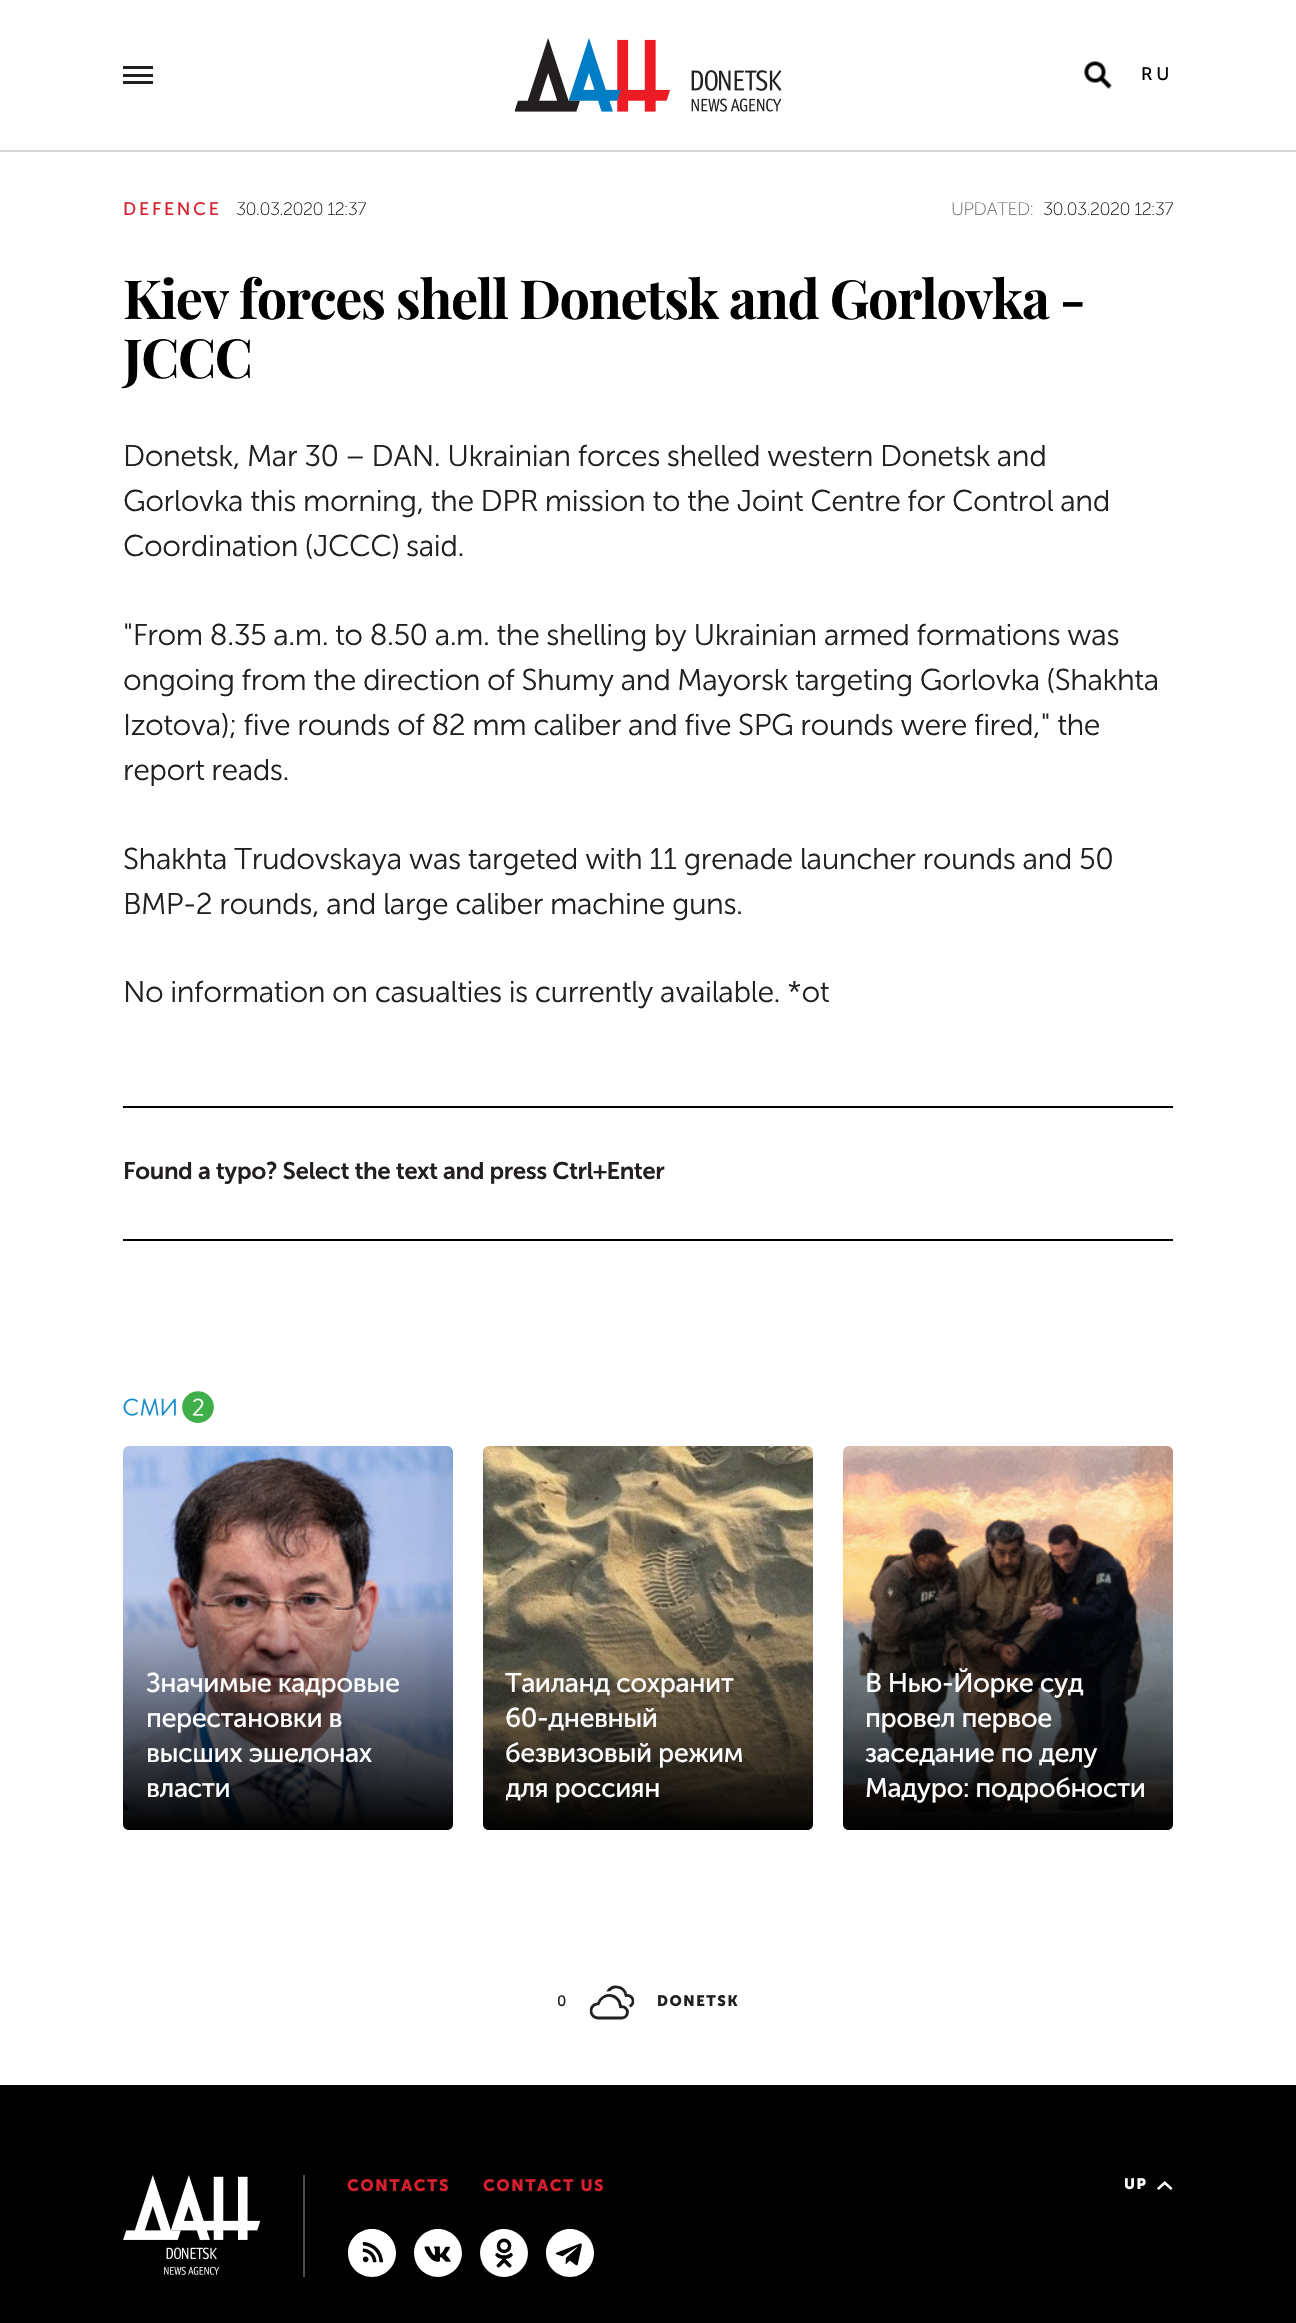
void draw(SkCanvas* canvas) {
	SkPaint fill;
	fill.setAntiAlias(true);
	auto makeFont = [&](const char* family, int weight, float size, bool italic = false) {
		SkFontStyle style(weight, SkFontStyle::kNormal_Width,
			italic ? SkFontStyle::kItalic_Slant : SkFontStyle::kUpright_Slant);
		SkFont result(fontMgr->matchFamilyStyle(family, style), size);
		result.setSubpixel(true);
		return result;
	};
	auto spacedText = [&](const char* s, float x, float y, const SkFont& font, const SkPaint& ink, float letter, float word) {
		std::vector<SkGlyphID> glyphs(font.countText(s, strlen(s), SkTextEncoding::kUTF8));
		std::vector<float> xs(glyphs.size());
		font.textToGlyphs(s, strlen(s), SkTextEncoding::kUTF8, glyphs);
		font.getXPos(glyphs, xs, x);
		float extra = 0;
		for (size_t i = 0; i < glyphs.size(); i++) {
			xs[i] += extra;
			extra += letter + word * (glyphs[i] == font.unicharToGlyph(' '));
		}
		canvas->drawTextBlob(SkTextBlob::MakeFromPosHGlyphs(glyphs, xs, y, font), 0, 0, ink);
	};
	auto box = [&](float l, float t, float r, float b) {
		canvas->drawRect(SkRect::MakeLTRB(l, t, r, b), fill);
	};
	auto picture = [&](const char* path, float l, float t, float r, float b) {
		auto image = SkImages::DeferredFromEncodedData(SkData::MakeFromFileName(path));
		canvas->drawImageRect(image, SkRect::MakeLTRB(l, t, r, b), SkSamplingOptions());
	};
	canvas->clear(0xFFFFFFFF);
	fill.setColor(0xFFD7D7D7);
	box(0, 150, 1296, 152);
	fill.setColor(0xFF231F20);
	box(123, 66, 153, 69);
	box(123, 74, 153, 77);
	box(123, 81, 153, 84);
	picture("image0.png", 515, 38, 782, 112);
	picture("image1.png", 1084, 61, 1112, 89);
	fill.setColor(0xFF000000);
	box(123, 1106, 1173, 1108);
	box(123, 1239, 1173, 1241);
	picture("image2.png", 123, 1391, 214, 1423);
	picture("image3.png", 123, 1446, 453, 1830);
	{
		const SkColor colors[] = {0xFF000000, 0x00000000};
		const float stops[] = {0, 1};
		const SkPoint ends[] = {{288, 1830}, {288, 1592}};
		fill.setShader(SkGradientShader::MakeLinear(ends, colors, stops, 2, SkTileMode::kClamp));
		fill.setAlpha(255);
	}
	canvas->drawPath(SkPathBuilder().moveTo(123, 1592).lineTo(453, 1592).lineTo(453, 1824).cubicTo(453, 1827.5f, 450.5f, 1830, 447, 1830).lineTo(129, 1830).cubicTo(125.5f, 1830, 123, 1827.5f, 123, 1824).close().detach(), fill);
	picture("image4.png", 483, 1446, 813, 1830);
	{
		const SkColor colors[] = {0xFF000000, 0x00000000};
		const float stops[] = {0, 1};
		const SkPoint ends[] = {{648, 1830}, {648, 1592}};
		fill.setShader(SkGradientShader::MakeLinear(ends, colors, stops, 2, SkTileMode::kClamp));
		fill.setAlpha(255);
	}
	canvas->drawPath(SkPathBuilder().moveTo(483, 1592).lineTo(813, 1592).lineTo(813, 1824).cubicTo(813, 1827.5f, 810.5f, 1830, 807, 1830).lineTo(489, 1830).cubicTo(485.5f, 1830, 483, 1827.5f, 483, 1824).close().detach(), fill);
	picture("image5.png", 843, 1446, 1173, 1830);
	{
		const SkColor colors[] = {0xFF000000, 0x00000000};
		const float stops[] = {0, 1};
		const SkPoint ends[] = {{1008, 1830}, {1008, 1592}};
		fill.setShader(SkGradientShader::MakeLinear(ends, colors, stops, 2, SkTileMode::kClamp));
		fill.setAlpha(255);
	}
	canvas->drawPath(SkPathBuilder().moveTo(843, 1592).lineTo(1173, 1592).lineTo(1173, 1824).cubicTo(1173, 1827.5f, 1170.5f, 1830, 1167, 1830).lineTo(849, 1830).cubicTo(845.5f, 1830, 843, 1827.5f, 843, 1824).close().detach(), fill);
	picture("image6.png", 589, 1985, 635, 2020);
	fill.setShader(nullptr);
	fill.setColor(0xFF000000);
	box(0, 2085, 1296, 2323);
	picture("image7.png", 123, 2175, 261, 2275);
	fill.setColor(0xFF4D4D4D);
	box(303, 2175, 305, 2277);
	picture("image8.png", 348, 2229, 396, 2277);
	picture("image9.png", 414, 2229, 462, 2277);
	picture("image10.png", 480, 2229, 528, 2277);
	picture("image11.png", 546, 2229, 594, 2277);
	picture("image12.png", 1157, 2181, 1173, 2190);
	auto font1 = makeFont("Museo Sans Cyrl", 400, 18);
	fill.setColor(0xFF000000);
	spacedText("RU", 1141, 80, font1, fill, 4, 0);
	fill.setColor(0xFFD7202E);
	spacedText("DEFENCE", 123, 215, font1, fill, 2.75f, 0);
	auto font2 = makeFont("Museo Sans Cyrl", 200, 18);
	fill.setColor(0xFF231F20);
	spacedText("30.03.2020 12:37", 236, 215, font2, fill, -0.48f, 0);
	fill.setColor(0xFF696969);
	spacedText("UPDATED:", 951, 215, font2, fill, -0.48f, 0);
	fill.setColor(0xFF231F20);
	spacedText("30.03.2020 12:37", 1043, 215, font2, fill, -0.48f, 0);
	auto font3 = makeFont("Playfair Display", 700, 54);
	fill.setColor(0xFF000000);
	spacedText("Kiev forces shell Donetsk and Gorlovka -", 123, 319, font3, fill, -1.35f, 0);
	spacedText("JCCC", 123, 378, font3, fill, -1.35f, 0);
	auto font4 = makeFont("Museo Sans Cyrl", 300, 30);
	fill.setColor(0xFF231F20);
	spacedText("Donetsk, Mar 30 – DAN. Ukrainian forces shelled western Donetsk and", 123, 466, font4, fill, -0.48f, 0);
	spacedText("Gorlovka this morning, the DPR mission to the Joint Centre for Control and", 123, 511, font4, fill, -0.48f, 0);
	spacedText("Coordination (JCCC) said.", 123, 556, font4, fill, -0.48f, 0);
	spacedText("\"From 8.35 a.m. to 8.50 a.m. the shelling by Ukrainian armed formations was", 123, 645, font4, fill, -0.48f, 0);
	spacedText("ongoing from the direction of Shumy and Mayorsk targeting Gorlovka (Shakhta", 123, 690, font4, fill, -0.48f, 0);
	spacedText("Izotova); five rounds of 82 mm caliber and five SPG rounds were fired,\" the", 123, 735, font4, fill, -0.48f, 0);
	spacedText("report reads.", 123, 780, font4, fill, -0.48f, 0);
	spacedText("Shakhta Trudovskaya was targeted with 11 grenade launcher rounds and 50", 123, 869, font4, fill, -0.48f, 0);
	spacedText("BMP-2 rounds, and large caliber machine guns.", 123, 914, font4, fill, -0.48f, 0);
	spacedText("No information on casualties is currently available. *ot", 123, 1002, font4, fill, -0.48f, 0);
	auto font5 = makeFont("Museo Sans Cyrl", 600, 24);
	spacedText("Found a typo? Select the text and press Ctrl+Enter", 123, 1179, font5, fill, -0.48f, 0);
	auto font6 = makeFont("Museo Sans Cyrl", 400, 27);
	fill.setColor(0xFFFFFFFF);
	spacedText("Значимые кадровые", 146, 1692, font6, fill, -0.48f, 0);
	spacedText("перестановки в", 146, 1727, font6, fill, -0.48f, 0);
	spacedText("высших эшелонах", 146, 1762, font6, fill, -0.48f, 0);
	spacedText("власти", 146, 1797, font6, fill, -0.48f, 0);
	spacedText("Таиланд сохранит", 505, 1692, font6, fill, -0.48f, 0);
	spacedText("60‑дневный", 505, 1727, font6, fill, -0.48f, 0);
	spacedText("безвизовый режим", 505, 1762, font6, fill, -0.48f, 0);
	canvas->save();
	canvas->clipRect(SkRect::MakeLTRB(506, 1667, 791, 1808));
	spacedText("для россиян", 505, 1797, font6, fill, -0.48f, 0);
	canvas->restore();
	spacedText("В Нью-Йорке суд", 865, 1692, font6, fill, -0.48f, 0);
	spacedText("провел первое", 865, 1727, font6, fill, -0.48f, 0);
	spacedText("заседание по делу", 865, 1762, font6, fill, -0.48f, 0);
	spacedText("Мадуро: подробности", 865, 1797, font6, fill, -0.48f, 0);
	auto font7 = makeFont("Museo Sans Cyrl", 400, 15);
	fill.setColor(0xFF231F20);
	spacedText("0", 557, 2006, font7, fill, 1.5f, 0);
	auto font8 = makeFont("Museo Sans Cyrl", 700, 15);
	spacedText("DONETSK", 657, 2006, font8, fill, 1.5f, 0);
	auto font9 = makeFont("Museo Sans Cyrl", 700, 16.5f);
	fill.setColor(0xFFD7202E);
	spacedText("CONTACTS", 347, 2191, font9, fill, 1.5f, 0);
	spacedText("CONTACT US", 483, 2191, font9, fill, 1.5f, 0);
	fill.setColor(0xFFFFFFFF);
	spacedText("UP", 1124, 2189, font8, fill, 1.5f, 0);
}
